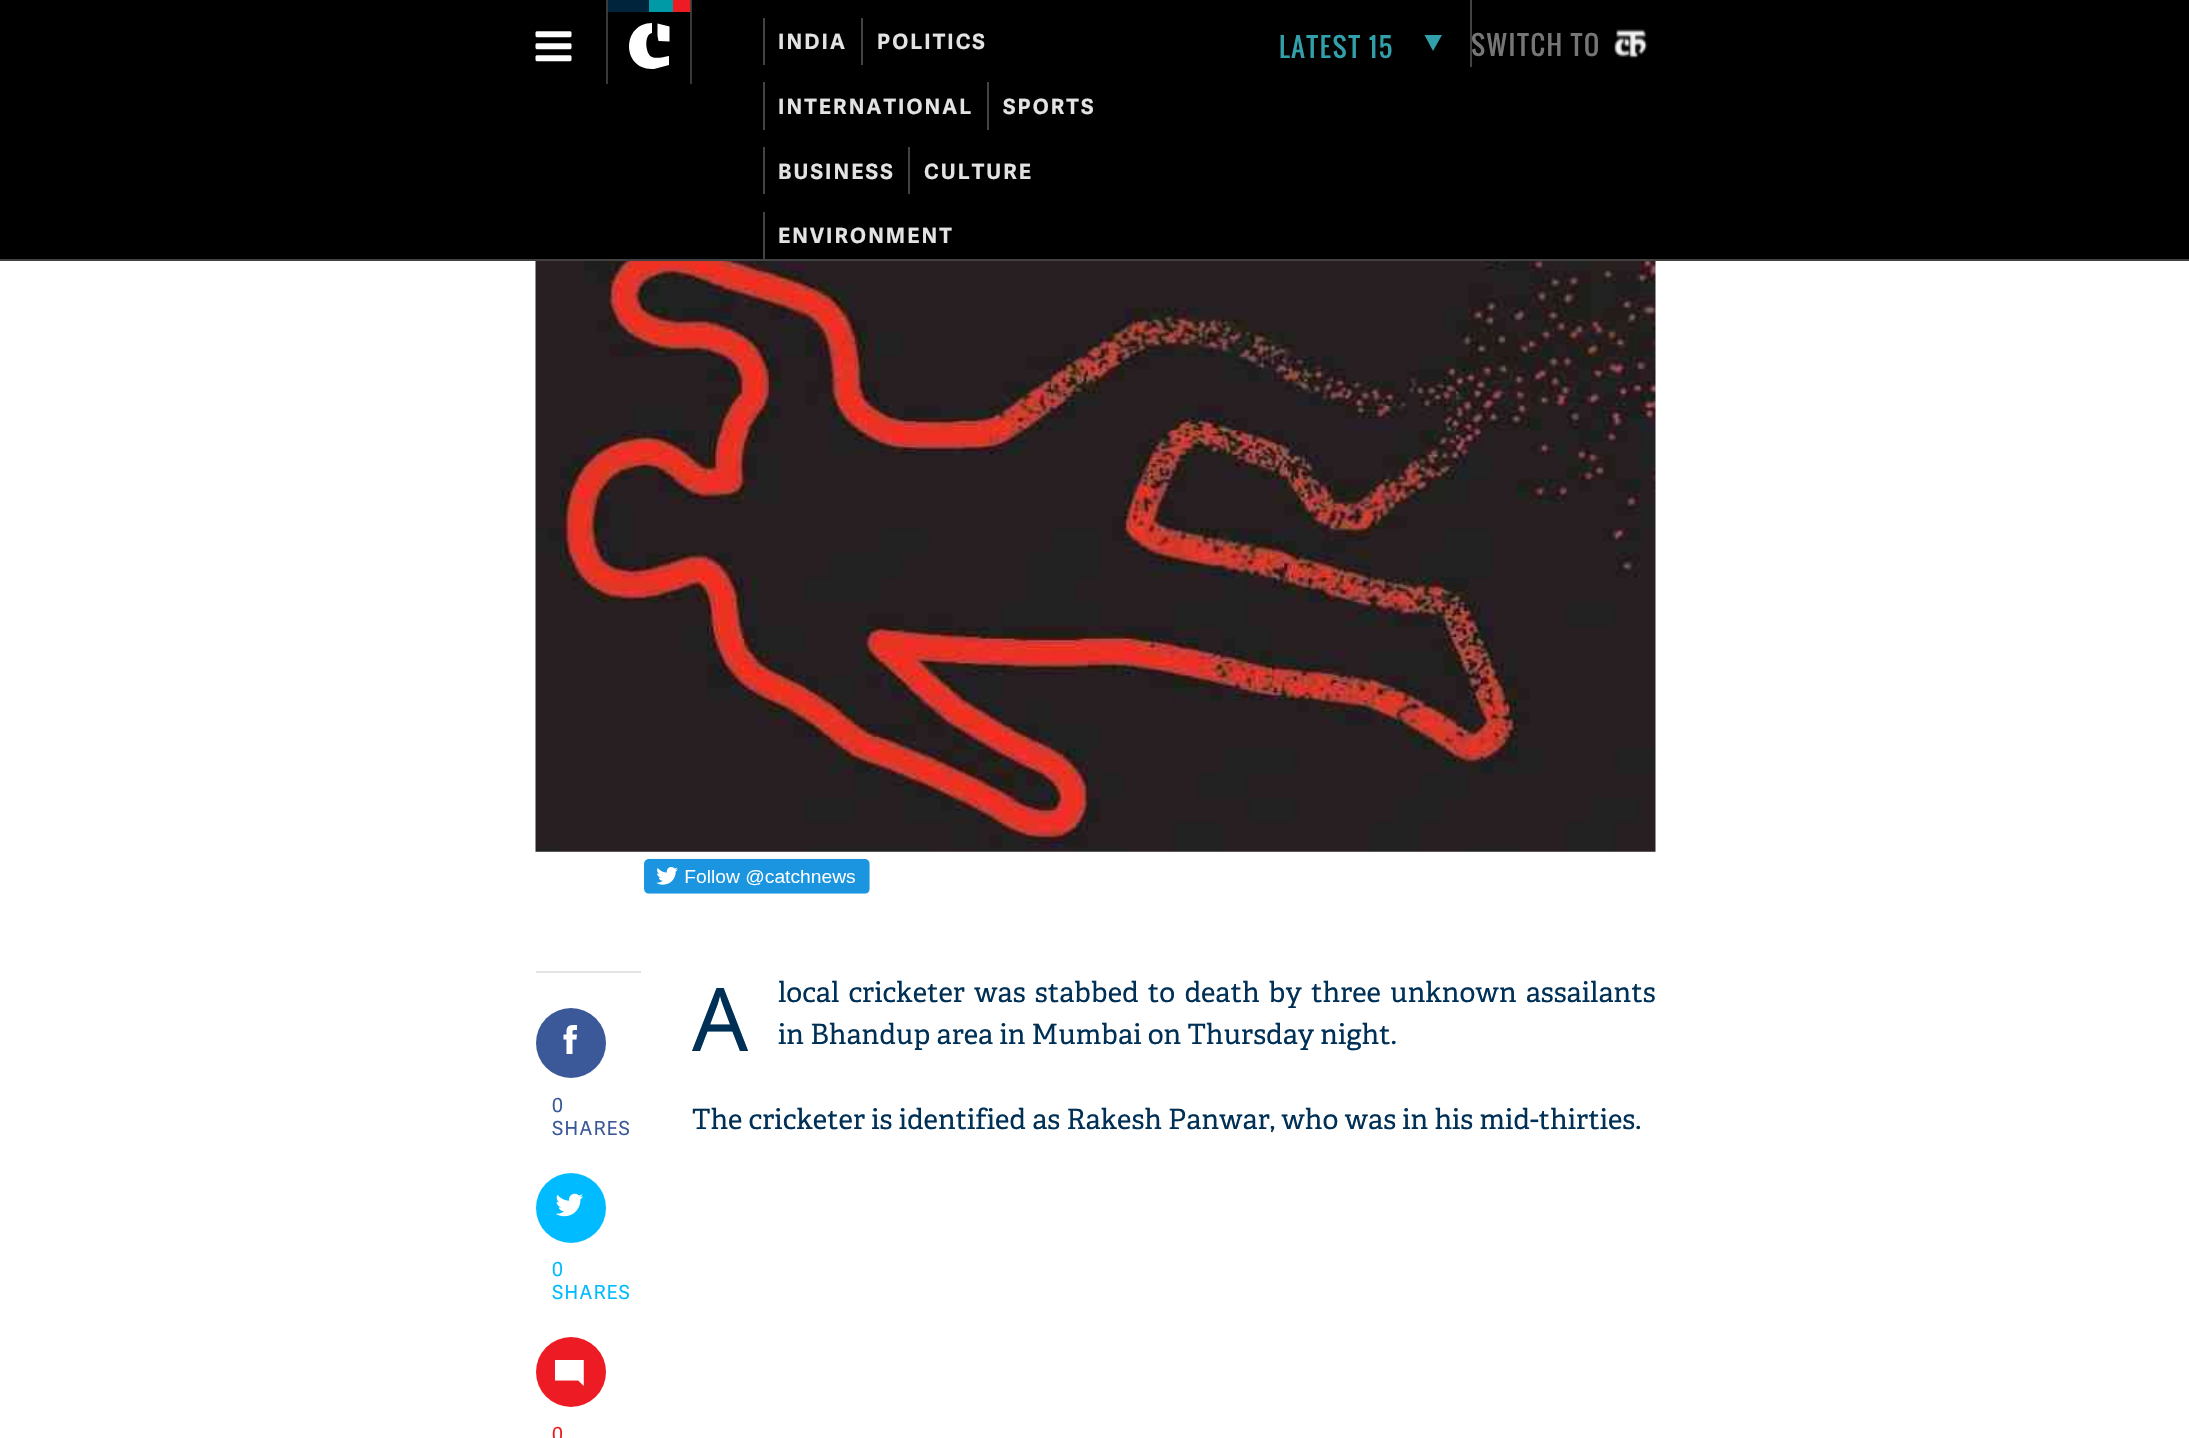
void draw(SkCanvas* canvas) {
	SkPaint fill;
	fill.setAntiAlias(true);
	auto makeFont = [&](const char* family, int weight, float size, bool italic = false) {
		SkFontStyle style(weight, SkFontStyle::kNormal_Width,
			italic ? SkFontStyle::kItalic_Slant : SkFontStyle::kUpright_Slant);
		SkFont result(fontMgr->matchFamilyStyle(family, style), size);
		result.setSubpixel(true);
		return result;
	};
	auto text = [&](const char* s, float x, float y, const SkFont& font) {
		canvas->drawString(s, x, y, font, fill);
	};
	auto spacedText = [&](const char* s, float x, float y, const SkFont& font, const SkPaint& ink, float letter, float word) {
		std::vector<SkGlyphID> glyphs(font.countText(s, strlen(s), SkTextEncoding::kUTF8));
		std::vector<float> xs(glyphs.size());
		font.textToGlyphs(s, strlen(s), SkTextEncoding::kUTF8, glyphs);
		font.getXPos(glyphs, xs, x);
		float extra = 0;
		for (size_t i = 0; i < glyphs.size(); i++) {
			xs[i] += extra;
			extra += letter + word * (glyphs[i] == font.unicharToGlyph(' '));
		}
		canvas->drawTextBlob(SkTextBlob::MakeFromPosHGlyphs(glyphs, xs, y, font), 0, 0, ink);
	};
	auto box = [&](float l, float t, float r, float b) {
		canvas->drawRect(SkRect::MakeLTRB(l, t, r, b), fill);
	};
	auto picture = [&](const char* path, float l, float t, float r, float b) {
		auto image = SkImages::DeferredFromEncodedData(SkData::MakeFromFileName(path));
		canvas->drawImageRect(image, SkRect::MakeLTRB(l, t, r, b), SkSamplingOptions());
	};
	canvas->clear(0xFFFFFFFF);
	fill.setColor(0xFF000000);
	box(0, 0, 2189, 259);
	fill.setColor(0xFF383838);
	box(606, 0, 608, 84);
	picture("image0.png", 535, 31, 572, 62);
	fill.setColor(0xFF383E41);
	box(607, 0, 608, 12);
	fill.setColor(0xFF00243C);
	box(608, 0, 649, 12);
	fill.setColor(0xFF009AA6);
	box(649, 0, 673, 12);
	fill.setColor(0xFFED1B23);
	box(673, 0, 691, 12);
	fill.setColor(0xFFFFFFFF);
	canvas->drawPath(SkPathBuilder(SkPathFillType::kEvenOdd).moveTo(658.5f, 41).lineTo(657.5f, 35.5f).lineTo(657.5f, 23.5f).lineTo(669.5f, 26.5f).lineTo(669.5f, 41.5f).close().detach(), fill);
	canvas->drawPath(SkPathBuilder(SkPathFillType::kEvenOdd).moveTo(652, 69).cubicTo(621, 69, 622, 23, 652, 23).lineTo(652, 33).cubicTo(644, 34, 645, 54, 652, 57).cubicTo(656, 59, 664, 57, 669, 56).lineTo(669, 65).lineTo(654, 69).close().detach(), fill);
	fill.setColor(0xD9424242);
	box(690, 0, 692, 84);
	fill.setColor(0xFF424242);
	box(763, 18, 765, 65);
	box(861, 18, 863, 65);
	box(763, 82, 765, 130);
	box(987, 82, 989, 130);
	box(763, 147, 765, 194);
	box(908, 147, 910, 194);
	box(763, 212, 765, 259);
	fill.setColor(0xFF32A0AA);
	canvas->drawPath(SkPathBuilder(SkPathFillType::kEvenOdd).moveTo(1433, 51).lineTo(1424.5f, 35).lineTo(1442, 35).close().detach(), fill);
	fill.setColor(0xFF424242);
	box(1470, 0, 1472, 67);
	picture("image1.png", 1613, 29, 1648, 59);
	box(0, 259, 2189, 261);
	picture("image2.png", 535, 261, 1656, 852);
	picture("image3.png", 644, 858, 870, 894);
	fill.setColor(0xFFE3E3E3);
	box(536, 971, 641, 973);
	fill.setColor(0xFF3B5998);
	canvas->drawCircle(571, 1043, 35, fill);
	picture("image4.png", 563, 1025, 577, 1054);
	fill.setColor(0xFF00BBFF);
	canvas->drawCircle(571, 1208, 35, fill);
	picture("image5.png", 555, 1193, 584, 1217);
	fill.setColor(0xFFED1B23);
	canvas->drawCircle(571, 1372, 35, fill);
	picture("image6.png", 555, 1360, 584, 1386);
	auto font1 = makeFont("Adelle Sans", 700, 21);
	fill.setColor(0xFFE3E3E3);
	spacedText("INDIA", 778, 49, font1, fill, 2.1f, 0);
	spacedText("POLITICS", 877, 49, font1, fill, 2.1f, 0);
	spacedText("INTERNATIONAL", 778, 114, font1, fill, 2.1f, 0);
	spacedText("SPORTS", 1003, 114, font1, fill, 2.1f, 0);
	spacedText("BUSINESS", 778, 179, font1, fill, 2.1f, 0);
	spacedText("CULTURE", 924, 179, font1, fill, 2.1f, 0);
	spacedText("ENVIRONMENT", 778, 243, font1, fill, 2.1f, 0);
	auto font2 = makeFont("Oswald", 400, 26.25f);
	fill.setColor(0xFF32A0AA);
	spacedText("LATEST 15", 1279, 58, font2, fill, 1.75f, 0);
	fill.setColor(0xFF767676);
	spacedText("SWITCH TO", 1471, 56, font2, fill, 1.75f, 0);
	auto font3 = makeFont("Noto Sans", 400, 88);
	fill.setColor(0xFF003056);
	text("A", 692, 1051, font3);
	auto font4 = makeFont("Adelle", 400, 28);
	spacedText("local cricketer was stabbed to death by three unknown assailants", 778, 1002, font4, fill, 0, 3);
	text("in Bhandup area in Mumbai on Thursday night.", 778, 1044, font4);
	text("The cricketer is identified as Rakesh Panwar, who was in his mid-thirties.", 692, 1129, font4);
	auto font5 = makeFont("Adelle Sans", 400, 19.25f);
	fill.setColor(0xFF3B5998);
	spacedText("0", 552, 1112, font5, fill, 1, 0);
	spacedText("SHARES", 552, 1135, font5, fill, 1, 0);
	fill.setColor(0xFF00BBFF);
	spacedText("0", 552, 1276, font5, fill, 1, 0);
	spacedText("SHARES", 552, 1299, font5, fill, 1, 0);
	fill.setColor(0xFFED1B23);
	spacedText("0", 552, 1441, font5, fill, 1, 0);
}
